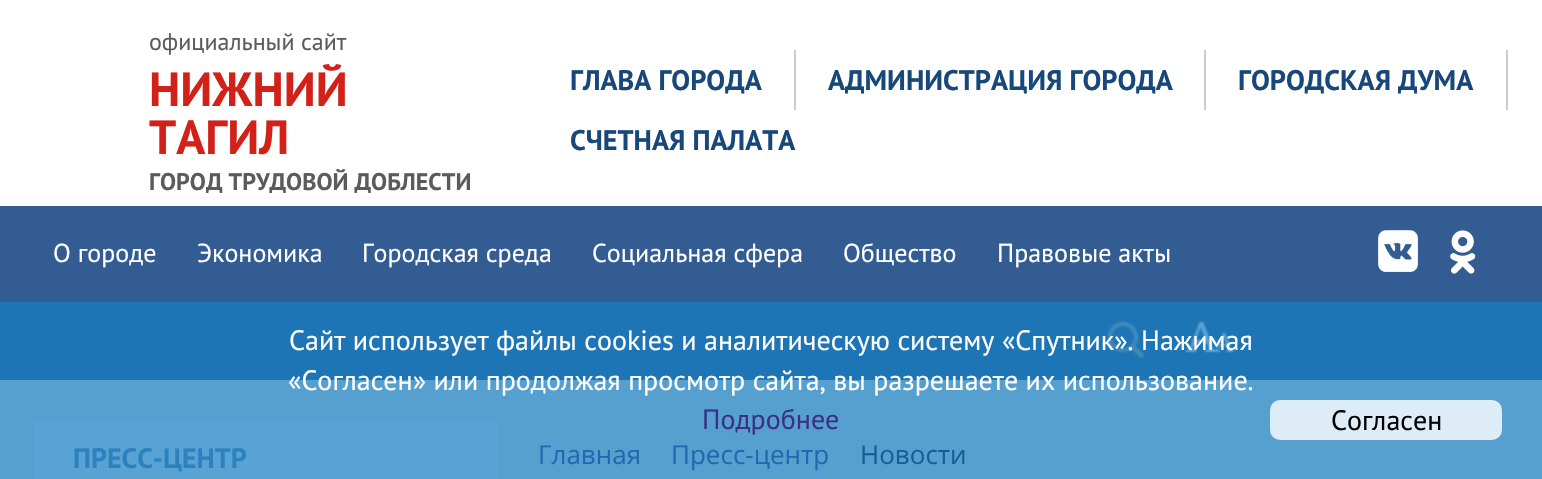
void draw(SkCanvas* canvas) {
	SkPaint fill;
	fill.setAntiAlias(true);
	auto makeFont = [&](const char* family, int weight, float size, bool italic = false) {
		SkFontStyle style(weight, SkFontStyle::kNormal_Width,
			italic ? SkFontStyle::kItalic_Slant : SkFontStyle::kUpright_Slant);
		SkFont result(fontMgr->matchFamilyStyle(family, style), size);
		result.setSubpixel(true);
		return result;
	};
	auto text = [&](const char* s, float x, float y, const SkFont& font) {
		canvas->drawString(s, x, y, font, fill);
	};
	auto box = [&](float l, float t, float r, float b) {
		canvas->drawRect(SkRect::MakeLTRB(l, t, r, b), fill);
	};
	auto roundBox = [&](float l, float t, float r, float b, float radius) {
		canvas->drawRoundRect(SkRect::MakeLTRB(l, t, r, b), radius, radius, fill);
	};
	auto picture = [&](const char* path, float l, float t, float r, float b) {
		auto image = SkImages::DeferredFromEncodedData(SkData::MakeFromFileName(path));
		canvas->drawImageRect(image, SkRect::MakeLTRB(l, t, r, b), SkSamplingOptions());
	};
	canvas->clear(0xFF56A0D0);
	fill.setColor(0xFFFFFFFF);
	box(0, 0, 1542, 206);
	fill.setColor(0xFFCCCCCC);
	box(794, 50, 796, 110);
	box(1204, 50, 1206, 110);
	box(1506, 50, 1508, 110);
	fill.setColor(0xFF325C92);
	box(0, 206, 1542, 302);
	fill.setColor(0xFF1E75B5);
	box(0, 302, 1542, 380);
	picture("image0.png", 1107, 321, 1145, 359);
	picture("image1.png", 1186, 321, 1235, 353);
	picture("image2.png", 1378, 230, 1418, 272);
	picture("image3.png", 1450, 230, 1476, 274);
	fill.setColor(0xFFDDECF6);
	roundBox(1270, 400, 1502, 440, 10);
	fill.setColor(0xFF58A3D4);
	box(34, 420, 498, 479);
	auto font1 = makeFont("PT Sans", 400, 24);
	fill.setColor(0xFF5B5B5B);
	text("официальный сайт", 149, 50, font1);
	auto font2 = makeFont("PT Sans", 700, 48);
	fill.setColor(0xFFD12119);
	text("НИЖНИЙ", 149, 106, font2);
	text("ТАГИЛ", 149, 154, font2);
	auto font3 = makeFont("PT Sans", 700, 24);
	fill.setColor(0xFF5B5B5B);
	text("ГОРОД ТРУДОВОЙ ДОБЛЕСТИ", 149, 190, font3);
	auto font4 = makeFont("PT Sans", 700, 28.2f);
	fill.setColor(0xFF18477A);
	text("ГЛАВА ГОРОДА", 570, 90, font4);
	text("АДМИНИСТРАЦИЯ ГОРОДА", 828, 90, font4);
	text("ГОРОДСКАЯ ДУМА", 1238, 90, font4);
	text("СЧЕТНАЯ ПАЛАТА", 570, 150, font4);
	auto font5 = makeFont("PT Sans", 400, 26);
	fill.setColor(0xFFFFFFFF);
	text("О городе", 53, 262, font5);
	text("Экономика", 197, 262, font5);
	text("Городская среда", 362, 262, font5);
	text("Социальная сфера", 592, 262, font5);
	text("Общество", 843, 262, font5);
	text("Правовые акты", 997, 262, font5);
	auto font6 = makeFont("PT Sans", 400, 28);
	text("Сайт использует файлы cookies и аналитическую систему «Спутник». Нажимая", 289, 350, font6);
	text("«Согласен» или продолжая просмотр сайта, вы разрешаете их использование.", 288, 390, font6);
	fill.setColor(0xFF393185);
	text("Подробнее", 702, 429, font6);
	fill.setColor(0xFF000000);
	text("Согласен", 1331, 430, font6);
	auto font7 = makeFont("PT Sans", 700, 28);
	fill.setColor(0xFF2C81BE);
	text("ПРЕСС-ЦЕНТР", 73, 468, font7);
	auto font8 = makeFont("Open Sans", 400, 26);
	fill.setColor(0xFF2068B1);
	text("Главная", 538, 464, font8);
	text("Пресс-центр", 671, 464, font8);
	fill.setColor(0xFF146093);
	text("Новости", 860, 464, font8);
}
